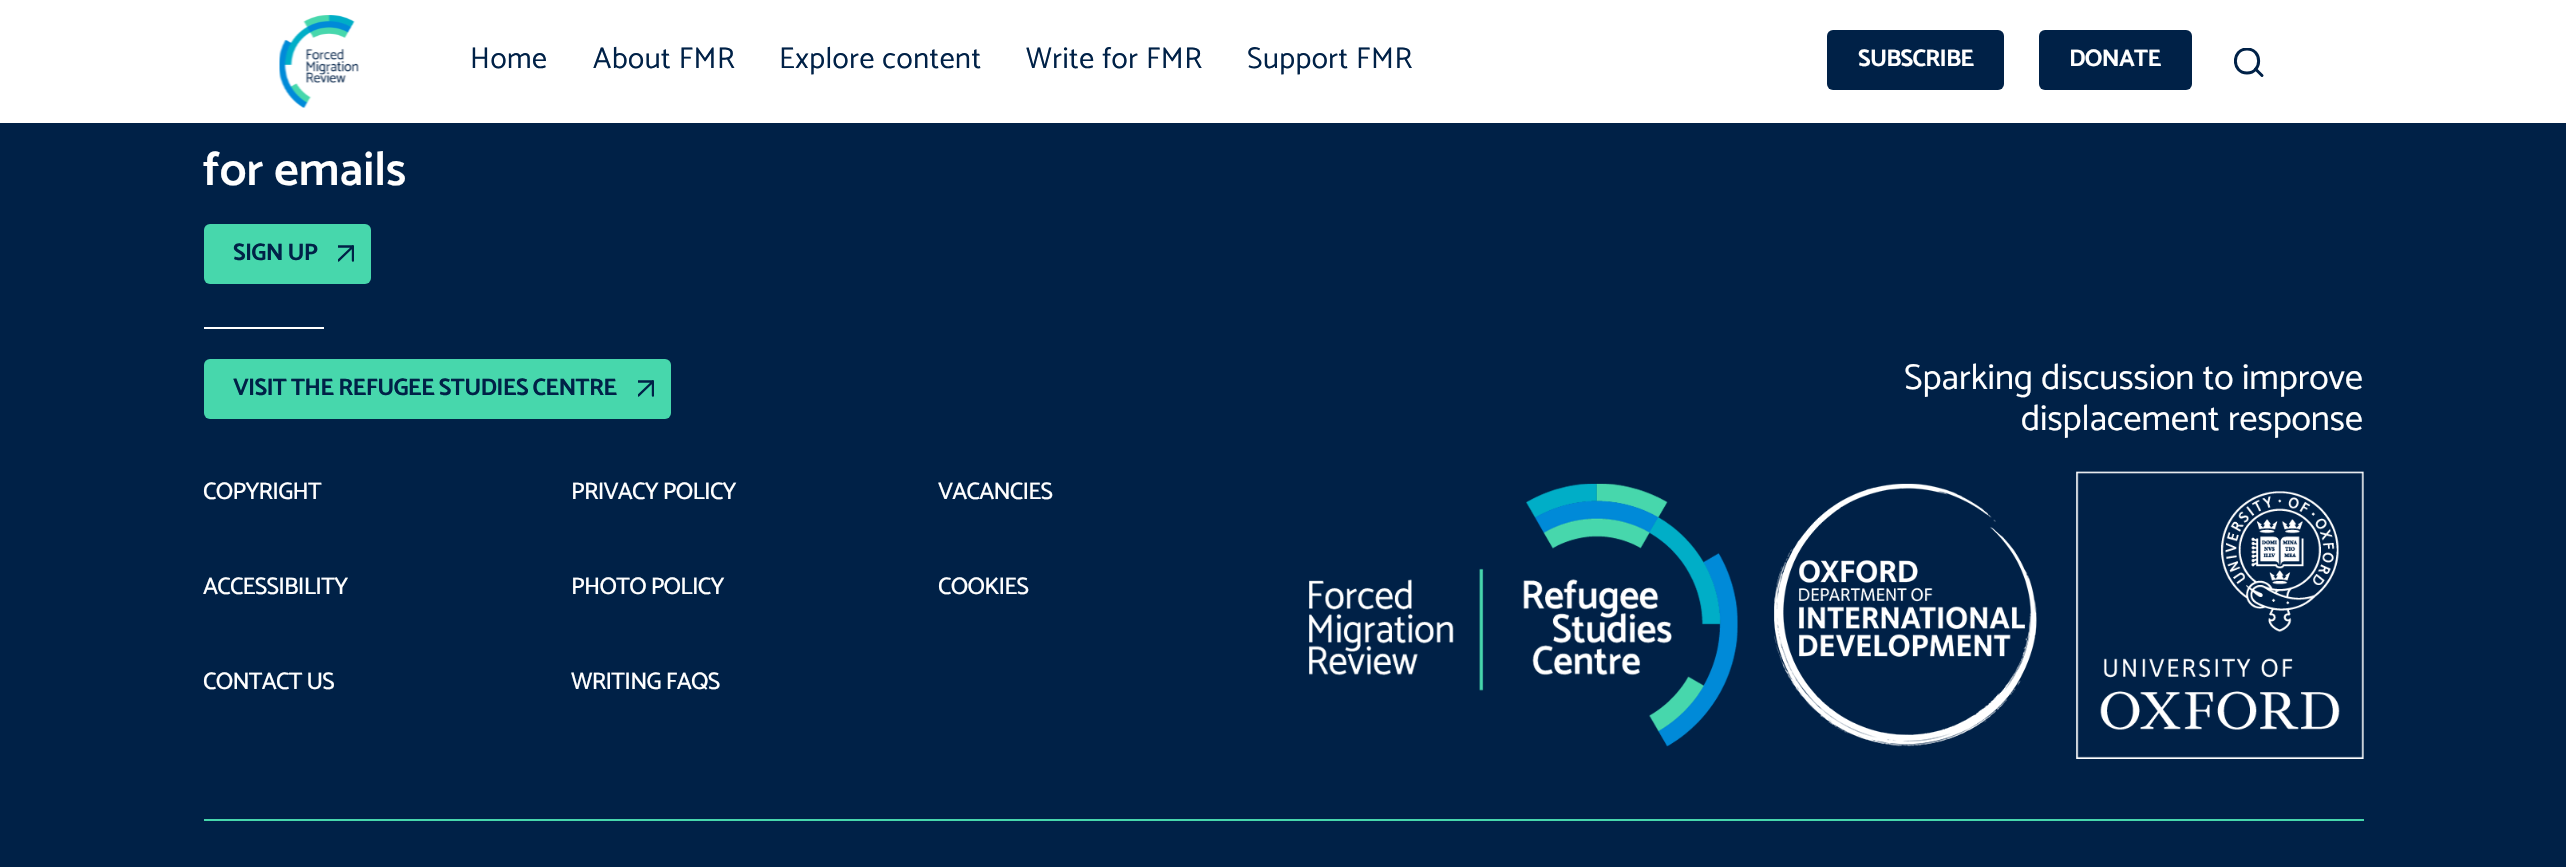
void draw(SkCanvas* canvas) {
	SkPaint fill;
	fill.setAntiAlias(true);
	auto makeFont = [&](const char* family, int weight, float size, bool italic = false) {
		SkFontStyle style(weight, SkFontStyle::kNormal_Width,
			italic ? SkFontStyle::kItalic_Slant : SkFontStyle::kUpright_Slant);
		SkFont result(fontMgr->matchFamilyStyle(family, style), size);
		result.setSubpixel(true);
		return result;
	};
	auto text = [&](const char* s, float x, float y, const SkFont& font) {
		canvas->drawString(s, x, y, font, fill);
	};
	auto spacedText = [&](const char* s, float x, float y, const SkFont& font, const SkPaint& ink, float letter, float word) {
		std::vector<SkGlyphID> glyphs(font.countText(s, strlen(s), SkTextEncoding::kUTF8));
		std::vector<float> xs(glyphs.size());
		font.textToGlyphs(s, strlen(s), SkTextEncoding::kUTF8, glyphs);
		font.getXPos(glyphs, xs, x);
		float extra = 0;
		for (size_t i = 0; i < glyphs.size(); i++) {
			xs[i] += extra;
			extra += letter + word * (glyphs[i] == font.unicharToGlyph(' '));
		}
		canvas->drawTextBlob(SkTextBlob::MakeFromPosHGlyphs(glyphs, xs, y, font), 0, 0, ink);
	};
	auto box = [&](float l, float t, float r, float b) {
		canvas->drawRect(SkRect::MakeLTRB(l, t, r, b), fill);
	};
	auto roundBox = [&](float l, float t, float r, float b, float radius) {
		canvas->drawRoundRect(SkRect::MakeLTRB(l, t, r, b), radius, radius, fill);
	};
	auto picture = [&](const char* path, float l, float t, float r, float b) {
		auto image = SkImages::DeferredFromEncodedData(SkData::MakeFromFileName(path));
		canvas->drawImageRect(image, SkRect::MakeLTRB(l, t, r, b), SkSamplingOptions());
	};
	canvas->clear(0xFF002147);
	fill.setColor(0xFFFFFFFF);
	box(0, 0, 2566, 123);
	picture("image0.png", 279, 15, 359, 108);
	canvas->save();
	canvas->clipRect(SkRect::MakeLTRB(2234, 48, 2264, 78));
	fill.setStyle(SkPaint::kStroke_Style);
	fill.setStrokeWidth(3);
	fill.setStrokeCap(SkPaint::kRound_Cap);
	fill.setStrokeJoin(SkPaint::kRound_Join);
	fill.setColor(0xFF002147);
	canvas->drawPath(SkPathBuilder().moveTo(2247, 73).cubicTo(2262.5f, 73, 2262.5f, 49, 2247, 49).cubicTo(2231.5f, 49, 2231.5f, 73, 2247, 73).close().detach(), fill);
	canvas->restore();
	canvas->drawPath(SkPathBuilder().moveTo(2262, 75.5f).lineTo(2255.5f, 69).detach(), fill);
	fill.setStyle(SkPaint::kFill_Style);
	roundBox(1827, 30, 2004, 90, 6);
	roundBox(2039, 30, 2192, 90, 6);
	fill.setColor(0xFF47D7AC);
	roundBox(204, 224, 371, 284, 6);
	canvas->save();
	canvas->clipRect(SkRect::MakeLTRB(338, 245, 354, 263));
	fill.setStyle(SkPaint::kStroke_Style);
	fill.setStrokeWidth(2.4f);
	fill.setColor(0xFF002147);
	canvas->drawPath(SkPathBuilder().moveTo(338.5f, 260.5f).lineTo(353, 246.5f).moveTo(338.5f, 246.5f).lineTo(353, 246.5f).lineTo(353, 260.5f).detach(), fill);
	canvas->restore();
	fill.setStyle(SkPaint::kFill_Style);
	fill.setColor(0xFFFFFFFF);
	box(204, 327, 324, 329);
	fill.setColor(0xFF47D7AC);
	roundBox(204, 359, 671, 419, 6);
	canvas->save();
	canvas->clipRect(SkRect::MakeLTRB(638, 380, 654, 398));
	fill.setStyle(SkPaint::kStroke_Style);
	fill.setColor(0xFF002147);
	canvas->drawPath(SkPathBuilder().moveTo(638.5f, 395.5f).lineTo(653, 381.5f).moveTo(638.5f, 381.5f).lineTo(653, 381.5f).lineTo(653, 395.5f).detach(), fill);
	canvas->restore();
	picture("image1.png", 1309, 471, 2364, 759);
	fill.setStyle(SkPaint::kFill_Style);
	fill.setColor(0xFF47D7AC);
	box(204, 819, 2364, 821);
	auto font1 = makeFont("Catamaran", 400, 30);
	fill.setColor(0xFF002147);
	spacedText("Home", 470, 68, font1, fill, 0.5f, 0);
	spacedText("About FMR", 593, 68, font1, fill, 0.5f, 0);
	spacedText("Explore content", 779, 68, font1, fill, 0.5f, 0);
	spacedText("Write for FMR", 1026, 68, font1, fill, 0.5f, 0);
	spacedText("Support FMR", 1247, 68, font1, fill, 0.5f, 0);
	auto font2 = makeFont("Catamaran", 700, 24);
	fill.setColor(0xFFFFFFFF);
	spacedText("SUBSCRIBE", 1858, 66, font2, fill, -0.75f, 0);
	spacedText("DONATE", 2069, 66, font2, fill, -0.75f, 0);
	auto font3 = makeFont("Catamaran", 600, 48);
	text("for emails", 203, 185, font3);
	fill.setColor(0xFF002147);
	spacedText("SIGN UP", 233, 260, font2, fill, -0.75f, 0);
	spacedText("VISIT THE REFUGEE STUDIES CENTRE", 233, 395, font2, fill, -0.75f, 0);
	auto font4 = makeFont("Catamaran", 400, 36);
	fill.setColor(0xFFFFFFFF);
	text("Sparking discussion to improve", 1904, 389, font4);
	text("displacement response", 2021, 430, font4);
	auto font5 = makeFont("Catamaran", 500, 24);
	spacedText("COPYRIGHT", 203, 499, font5, fill, -0.75f, 0);
	spacedText("ACCESSIBILITY", 203, 594, font5, fill, -0.75f, 0);
	spacedText("CONTACT US", 203, 689, font5, fill, -0.75f, 0);
	spacedText("PRIVACY POLICY", 571, 499, font5, fill, -0.75f, 0);
	spacedText("PHOTO POLICY", 571, 594, font5, fill, -0.75f, 0);
	spacedText("WRITING FAQS", 571, 689, font5, fill, -0.75f, 0);
	spacedText("VACANCIES", 938, 499, font5, fill, -0.75f, 0);
	spacedText("COOKIES", 938, 594, font5, fill, -0.75f, 0);
}
